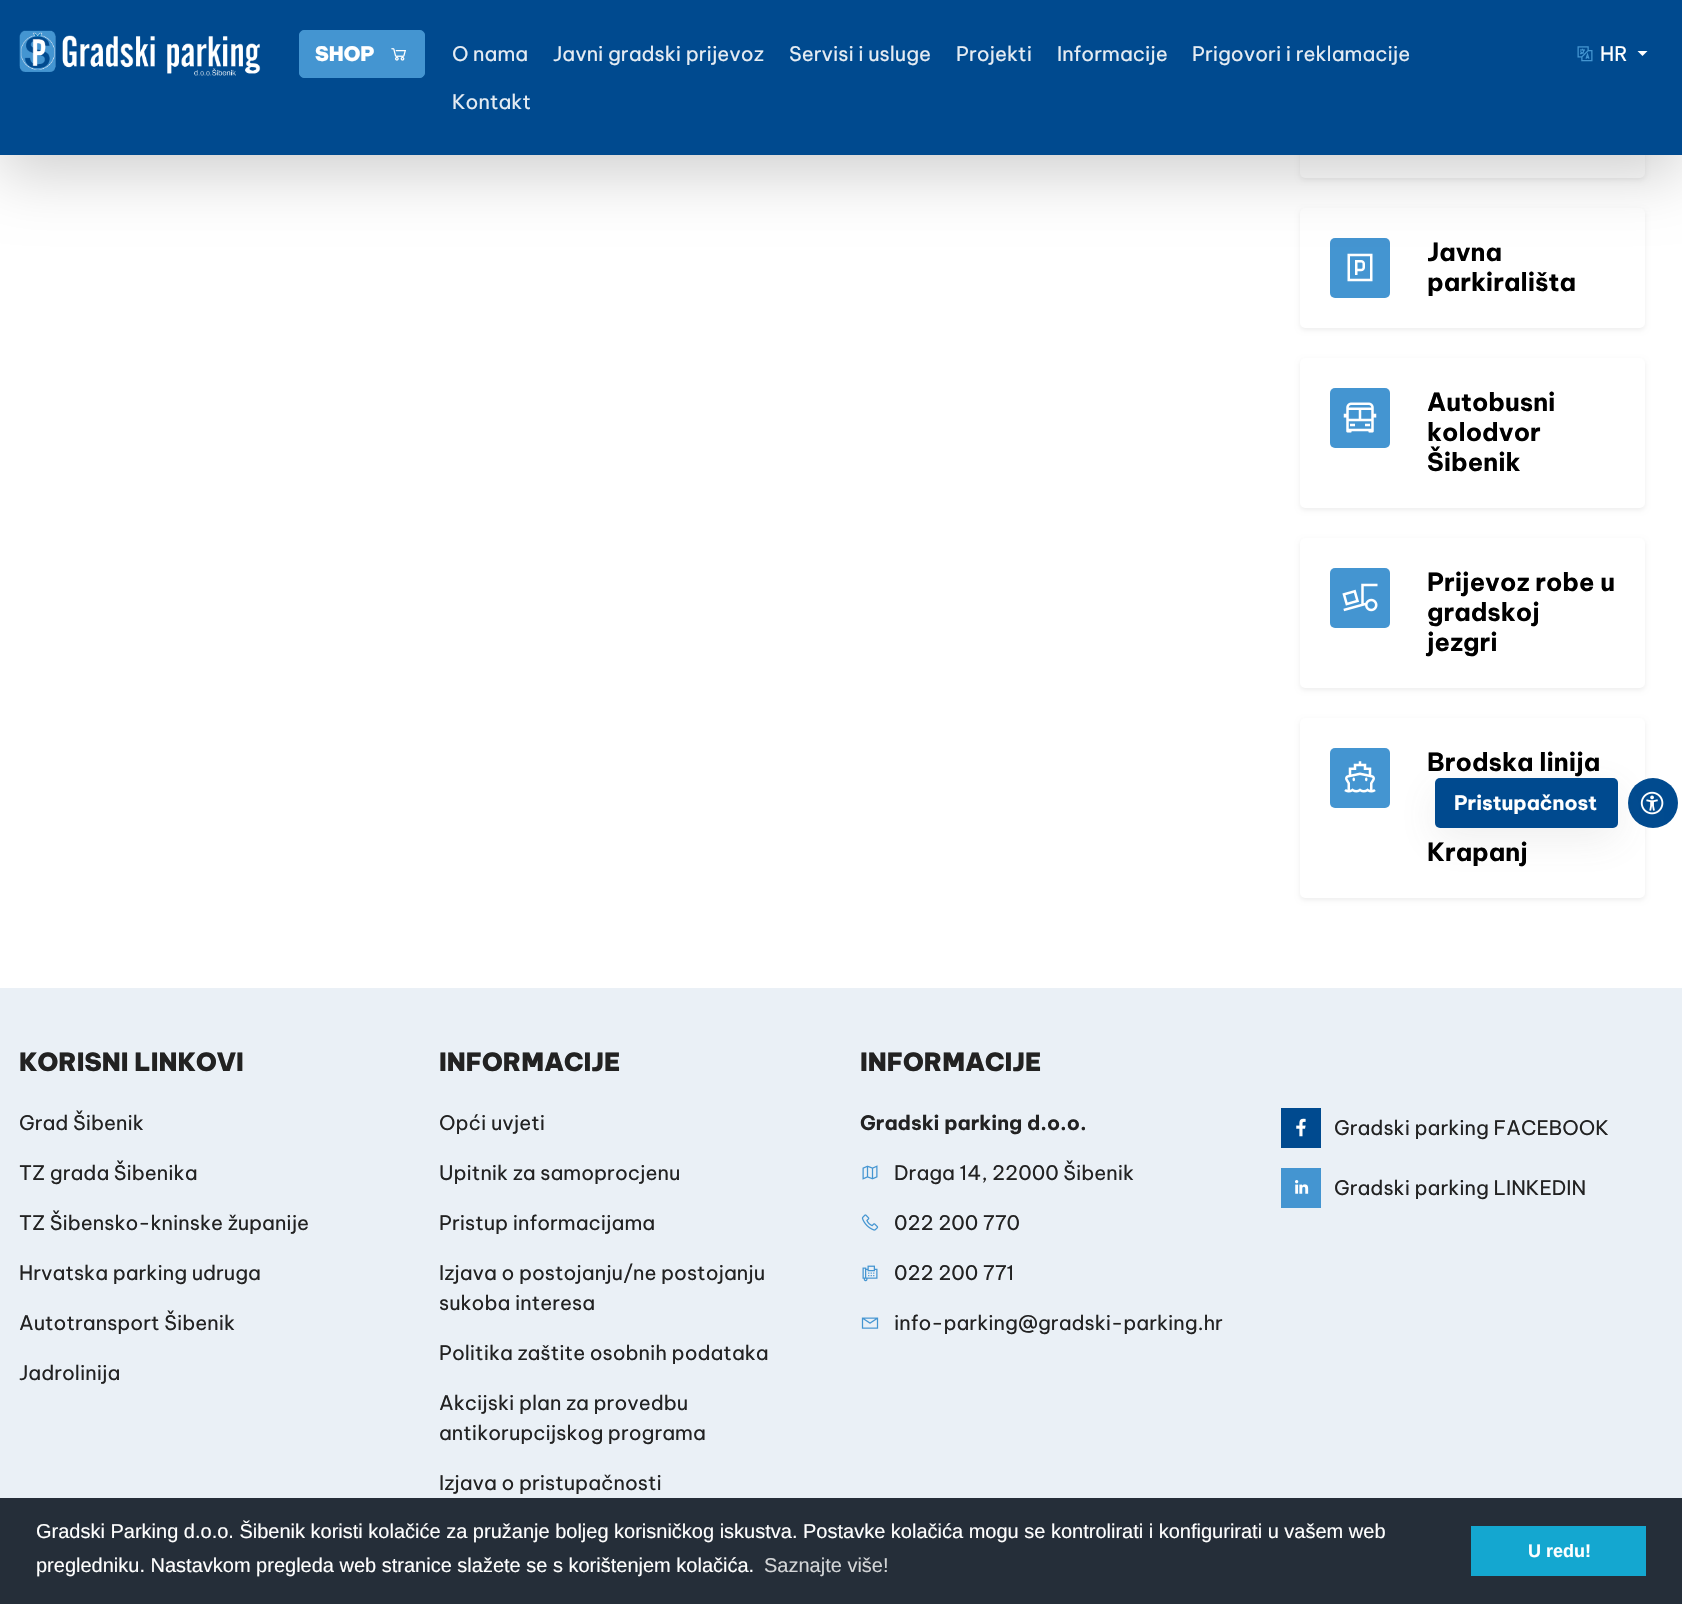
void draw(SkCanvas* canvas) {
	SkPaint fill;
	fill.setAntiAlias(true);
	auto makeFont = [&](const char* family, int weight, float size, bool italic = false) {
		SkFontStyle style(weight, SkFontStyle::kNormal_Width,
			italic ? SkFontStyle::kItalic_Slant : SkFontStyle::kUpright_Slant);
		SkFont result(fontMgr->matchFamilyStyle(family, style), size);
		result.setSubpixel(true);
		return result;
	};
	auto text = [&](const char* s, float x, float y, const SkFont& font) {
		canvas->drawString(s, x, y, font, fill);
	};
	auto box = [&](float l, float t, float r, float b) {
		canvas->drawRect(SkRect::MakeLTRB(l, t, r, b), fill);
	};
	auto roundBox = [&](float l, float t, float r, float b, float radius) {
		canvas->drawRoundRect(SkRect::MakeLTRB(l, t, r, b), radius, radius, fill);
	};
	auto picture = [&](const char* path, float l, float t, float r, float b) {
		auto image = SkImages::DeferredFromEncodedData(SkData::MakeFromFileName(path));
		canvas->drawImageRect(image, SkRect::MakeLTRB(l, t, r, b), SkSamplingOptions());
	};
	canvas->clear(0xFFFFFFFF);
	fill.setColor(0x12000000);
	fill.setMaskFilter(SkMaskFilter::MakeBlur(kNormal_SkBlurStyle, 2.5f));
	canvas->drawRoundRect(SkRect::MakeLTRB(1300, 60, 1645, 180), 5, 5, fill);
	fill.setMaskFilter(nullptr);
	fill.setColor(0xFFFFFFFF);
	roundBox(1300, 58, 1645, 178, 5);
	fill.setColor(0x12000000);
	fill.setMaskFilter(SkMaskFilter::MakeBlur(kNormal_SkBlurStyle, 2.5f));
	canvas->drawRoundRect(SkRect::MakeLTRB(1300, 210, 1645, 330), 5, 5, fill);
	fill.setMaskFilter(nullptr);
	fill.setColor(0xFFFFFFFF);
	roundBox(1300, 208, 1645, 328, 5);
	fill.setColor(0xFF4495D1);
	roundBox(1330, 238, 1390, 298, 5);
	picture("image3.png", 1347, 253, 1373, 282);
	fill.setColor(0x2E000000);
	fill.setMaskFilter(SkMaskFilter::MakeBlur(kNormal_SkBlurStyle, 30));
	canvas->drawRect(SkRect::MakeLTRB(0, 20, 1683, 175), fill);
	fill.setMaskFilter(nullptr);
	fill.setColor(0xFF004A8F);
	box(0, 0, 1682, 155);
	picture("image0.png", 19, 30, 261, 76);
	fill.setColor(0xFF4495D1);
	canvas->drawRoundRect(SkRect::MakeLTRB(299.5f, 30.5f, 424.5f, 77.5f), 4.5f, 4.5f, fill);
	fill.setStyle(SkPaint::kStroke_Style);
	fill.setStrokeWidth(1);
	canvas->drawRoundRect(SkRect::MakeLTRB(299.5f, 30.5f, 424.5f, 77.5f), 4.5f, 4.5f, fill);
	picture("image1.png", 391, 48, 406, 61);
	picture("image2.png", 1577, 46, 1593, 62);
	fill.setStyle(SkPaint::kFill_Style);
	fill.setColor(0xFFFFFFFF);
	canvas->drawPath(SkPathBuilder().moveTo(1637.5f, 51).lineTo(1647.5f, 51).lineTo(1642.5f, 56).close().detach(), fill);
	fill.setColor(0x12000000);
	fill.setMaskFilter(SkMaskFilter::MakeBlur(kNormal_SkBlurStyle, 2.5f));
	canvas->drawRoundRect(SkRect::MakeLTRB(1300, 360, 1645, 510), 5, 5, fill);
	fill.setMaskFilter(nullptr);
	fill.setColor(0xFFFFFFFF);
	roundBox(1300, 358, 1645, 508, 5);
	fill.setColor(0xFF4495D1);
	roundBox(1330, 388, 1390, 448, 5);
	picture("image4.png", 1343, 402, 1377, 433);
	fill.setColor(0x12000000);
	fill.setMaskFilter(SkMaskFilter::MakeBlur(kNormal_SkBlurStyle, 2.5f));
	canvas->drawRoundRect(SkRect::MakeLTRB(1300, 540, 1645, 690), 5, 5, fill);
	fill.setMaskFilter(nullptr);
	fill.setColor(0xFFFFFFFF);
	roundBox(1300, 538, 1645, 688, 5);
	fill.setColor(0xFF4495D1);
	roundBox(1330, 568, 1390, 628, 5);
	picture("image5.png", 1342, 583, 1378, 612);
	fill.setColor(0x12000000);
	fill.setMaskFilter(SkMaskFilter::MakeBlur(kNormal_SkBlurStyle, 2.5f));
	canvas->drawRoundRect(SkRect::MakeLTRB(1300, 720, 1645, 900), 5, 5, fill);
	fill.setMaskFilter(nullptr);
	fill.setColor(0xFFFFFFFF);
	roundBox(1300, 718, 1645, 898, 5);
	fill.setColor(0xFF4495D1);
	roundBox(1330, 748, 1390, 808, 5);
	picture("image6.png", 1344, 761, 1376, 793);
	fill.setColor(0xFF004A8F);
	canvas->drawCircle(1653, 803, 25, fill);
	picture("image7.png", 1640, 791, 1664, 815);
	fill.setColor(0x1A666666);
	fill.setMaskFilter(SkMaskFilter::MakeBlur(kNormal_SkBlurStyle, 19));
	canvas->drawRoundRect(SkRect::MakeLTRB(1435, 790, 1618, 840), 5, 5, fill);
	fill.setMaskFilter(nullptr);
	fill.setColor(0xFF004A8F);
	roundBox(1435, 778, 1618, 828, 5);
	fill.setColor(0xFFEAF0F6);
	box(0, 988, 1682, 1498);
	picture("image8.png", 862, 1165, 878, 1180);
	picture("image9.png", 861, 1214, 879, 1231);
	picture("image10.png", 862, 1265, 878, 1282);
	picture("image11.png", 861, 1317, 879, 1329);
	fill.setColor(0xFF004A8F);
	box(1281, 1108, 1321, 1148);
	picture("image12.png", 1296, 1118, 1306, 1137);
	fill.setColor(0xFF4495D1);
	box(1281, 1168, 1321, 1208);
	picture("image13.png", 1295, 1180, 1309, 1194);
	fill.setColor(0xFF252E39);
	box(0, 1498, 1682, 1604);
	fill.setColor(0xFF14A7D0);
	box(1471, 1526, 1646, 1576);
	auto font1 = makeFont("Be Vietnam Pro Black", 900, 20);
	fill.setColor(0xFFFFFFFF);
	text("SHOP", 315, 61, font1);
	auto font2 = makeFont("Be Vietnam Pro", 400, 20);
	fill.setColor(0xFFE5ECF3);
	text("O nama", 452, 61, font2);
	text("Javni gradski prijevoz", 553, 61, font2);
	text("Servisi i usluge", 789, 61, font2);
	text("Projekti", 956, 61, font2);
	text("Informacije", 1057, 61, font2);
	text("Prigovori i reklamacije", 1192, 61, font2);
	text("Kontakt", 452, 109, font2);
	fill.setColor(0xFFFFFFFF);
	text("HR", 1600, 61, font2);
	auto font3 = makeFont("Be Vietnam Pro", 700, 25);
	fill.setColor(0xFF000000);
	text("Javna", 1427, 261, font3);
	text("parkirališta", 1427, 291, font3);
	text("Autobusni", 1427, 411, font3);
	text("kolodvor", 1427, 441, font3);
	text("Šibenik", 1427, 471, font3);
	text("Prijevoz robe u", 1427, 591, font3);
	text("gradskoj", 1427, 621, font3);
	text("jezgri", 1427, 651, font3);
	text("Brodska linija", 1427, 771, font3);
	text("Krapanj", 1427, 861, font3);
	auto font4 = makeFont("Be Vietnam Pro", 700, 20);
	fill.setColor(0xFFFFFFFF);
	text("Pristupačnost", 1454, 810, font4);
	auto font5 = makeFont("Be Vietnam Pro Black", 900, 25);
	fill.setColor(0xFF222222);
	text("KORISNI LINKOVI", 19, 1071, font5);
	text("Grad Šibenik", 19, 1130, font2);
	text("TZ grada Šibenika", 19, 1180, font2);
	text("TZ Šibensko-kninske županije", 19, 1230, font2);
	text("Hrvatska parking udruga", 19, 1280, font2);
	text("Autotransport Šibenik", 19, 1330, font2);
	text("Jadrolinija", 19, 1380, font2);
	text("INFORMACIJE", 439, 1071, font5);
	text("Opći uvjeti", 439, 1130, font2);
	text("Upitnik za samoprocjenu", 439, 1180, font2);
	text("Pristup informacijama", 439, 1230, font2);
	text("Izjava o postojanju/ne postojanju", 439, 1280, font2);
	text("sukoba interesa", 439, 1310, font2);
	text("Politika zaštite osobnih podataka", 439, 1360, font2);
	text("Akcijski plan za provedbu", 439, 1410, font2);
	text("antikorupcijskog programa", 439, 1440, font2);
	text("Izjava o pristupačnosti", 439, 1490, font2);
	text("INFORMACIJE", 860, 1071, font5);
	text("Gradski parking d.o.o.", 860, 1130, font4);
	text("Draga 14, 22000 Šibenik", 894, 1180, font2);
	text("022 200 770", 894, 1230, font2);
	text("022 200 771", 894, 1280, font2);
	text("info-parking@gradski-parking.hr", 894, 1330, font2);
	text("Gradski parking FACEBOOK", 1334, 1135, font2);
	text("Gradski parking LINKEDIN", 1334, 1195, font2);
	auto font6 = makeFont("Liberation Sans", 400, 20);
	fill.setColor(0xFFFFFFFF);
	text("Gradski Parking d.o.o. Šibenik koristi kolačiće za pružanje boljeg korisničkog iskustva. Postavke kolačića mogu se kontrolirati i konfigurirati u vašem web", 36, 1538, font6);
	text("pregledniku. Nastavkom pregleda web stranice slažete se s korištenjem kolačića.", 36, 1572, font6);
	fill.setColor(0xFFD3D5D7);
	text("Saznajte više!", 764, 1572, font6);
	auto font7 = makeFont("Liberation Sans", 700, 18);
	fill.setColor(0xFFFFFFFF);
	text("U redu!", 1528, 1557, font7);
}
